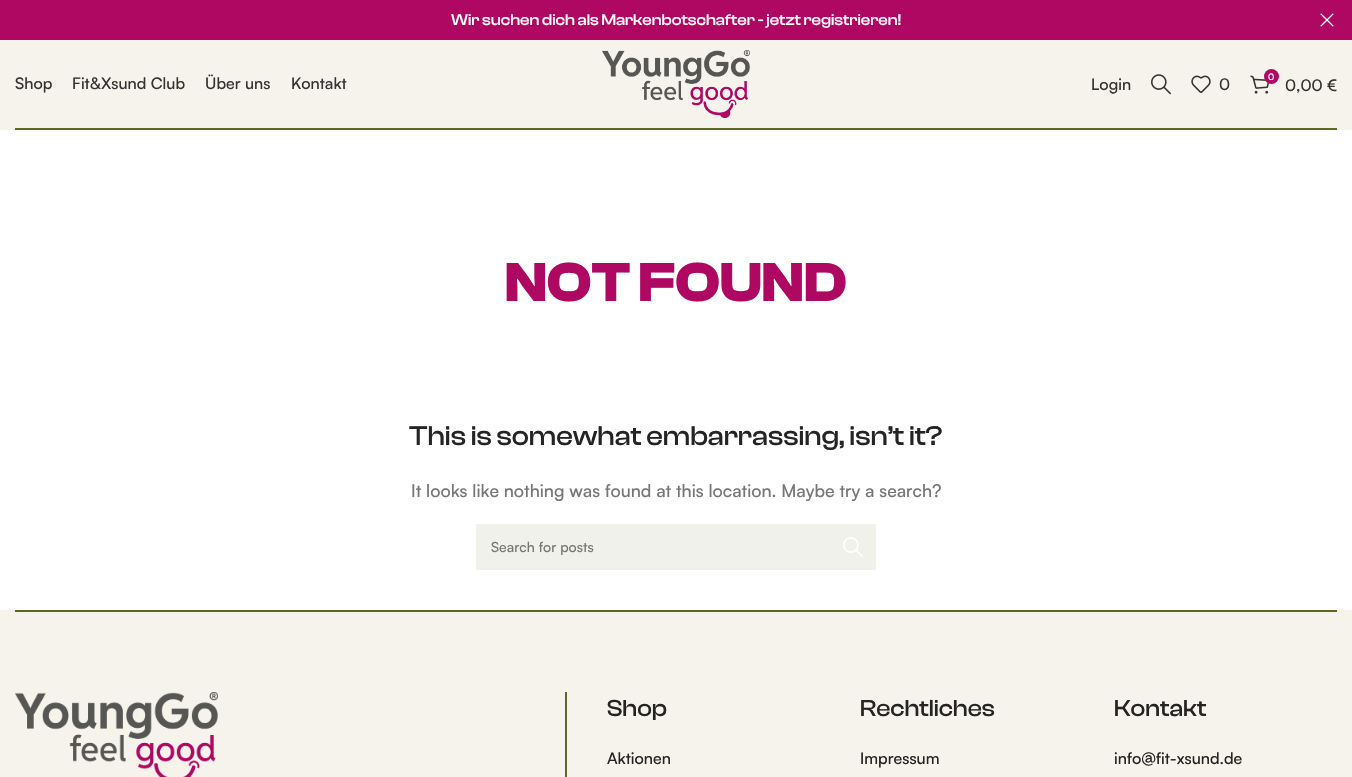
void draw(SkCanvas* canvas) {
	SkPaint fill;
	fill.setAntiAlias(true);
	auto makeFont = [&](const char* family, int weight, float size, bool italic = false) {
		SkFontStyle style(weight, SkFontStyle::kNormal_Width,
			italic ? SkFontStyle::kItalic_Slant : SkFontStyle::kUpright_Slant);
		SkFont result(fontMgr->matchFamilyStyle(family, style), size);
		result.setSubpixel(true);
		return result;
	};
	auto text = [&](const char* s, float x, float y, const SkFont& font) {
		canvas->drawString(s, x, y, font, fill);
	};
	auto box = [&](float l, float t, float r, float b) {
		canvas->drawRect(SkRect::MakeLTRB(l, t, r, b), fill);
	};
	auto picture = [&](const char* path, float l, float t, float r, float b) {
		auto image = SkImages::DeferredFromEncodedData(SkData::MakeFromFileName(path));
		canvas->drawImageRect(image, SkRect::MakeLTRB(l, t, r, b), SkSamplingOptions());
	};
	canvas->clear(0xFFFFFFFF);
	fill.setColor(0xFFAE0862);
	box(0, 0, 1352, 40);
	picture("image0.png", 1320, 13, 1334, 27);
	fill.setColor(0xFFF6F3ED);
	box(0, 40, 1352, 130);
	fill.setColor(0xFF5E6821);
	box(15, 128, 1337, 130);
	picture("image1.png", 602, 50, 750, 118);
	picture("image2.png", 1151, 74, 1171, 95);
	picture("image3.png", 1191, 75, 1211, 93);
	picture("image4.png", 1250, 75, 1269, 94);
	fill.setColor(0xFFAE0862);
	canvas->drawCircle(1271.5f, 76.5f, 7.5f, fill);
	fill.setColor(0xFFF1F1EB);
	box(476, 524, 876, 570);
	picture("image5.png", 843, 537, 863, 557);
	fill.setColor(0xFFF6F3ED);
	box(0, 610, 1352, 777);
	fill.setColor(0xFF5E6821);
	box(15, 610, 1337, 612);
	box(565, 692, 567, 777);
	picture("image6.png", 15, 692, 218, 777);
	auto font1 = makeFont("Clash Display", 500, 16);
	fill.setColor(0xFFFFFFFF);
	text("Wir suchen dich als Markenbotschafter - jetzt registrieren!", 451, 25, font1);
	auto font2 = makeFont("Satoshi", 500, 16);
	fill.setColor(0xFF333333);
	text("Shop", 15, 89, font2);
	text("Fit&Xsund Club", 72, 89, font2);
	text("Über uns", 205, 89, font2);
	text("Kontakt", 291, 89, font2);
	text("Login", 1091, 90, font2);
	text("0", 1219, 90, font2);
	auto font3 = makeFont("Satoshi", 500, 9);
	fill.setColor(0xFFFFFFFF);
	text("0", 1268, 80, font3);
	fill.setColor(0xFF333333);
	text("0,00 €", 1285, 91, font2);
	auto font4 = makeFont("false", 700, 56.75f);
	fill.setColor(0xFFAE0862);
	text("NOT FOUND", 505, 301, font4);
	auto font5 = makeFont("Clash Display", 500, 28);
	fill.setColor(0xFF242424);
	text("This is somewhat embarrassing, isn’t it?", 409, 445, font5);
	auto font6 = makeFont("Satoshi", 500, 17.6f);
	fill.setColor(0xFF767676);
	text("It looks like nothing was found at this location. Maybe try a search?", 411, 497, font6);
	auto font7 = makeFont("Satoshi", 500, 14);
	text("Search for posts", 491, 552, font7);
	auto font8 = makeFont("Clash Display", 500, 24);
	fill.setColor(0xFF242424);
	text("Shop", 607, 716, font8);
	text("Aktionen", 607, 764, font2);
	text("Rechtliches", 860, 716, font8);
	text("Impressum", 860, 764, font2);
	text("Kontakt", 1114, 716, font8);
	text("info@fit-xsund.de", 1114, 764, font2);
}
